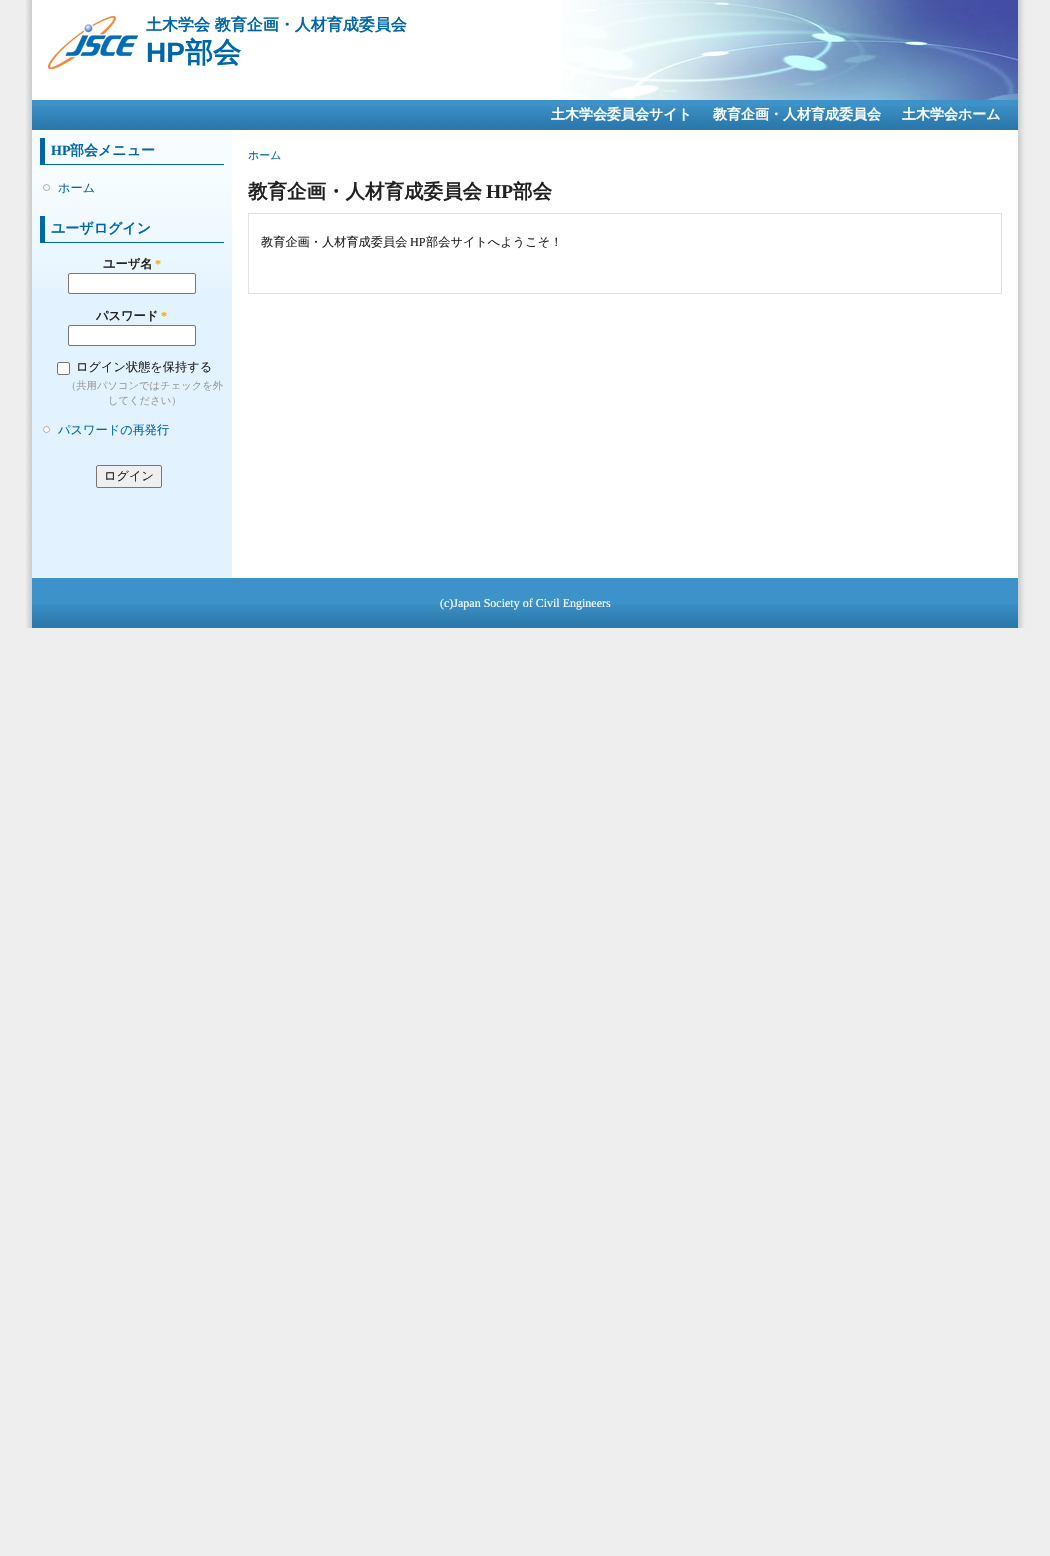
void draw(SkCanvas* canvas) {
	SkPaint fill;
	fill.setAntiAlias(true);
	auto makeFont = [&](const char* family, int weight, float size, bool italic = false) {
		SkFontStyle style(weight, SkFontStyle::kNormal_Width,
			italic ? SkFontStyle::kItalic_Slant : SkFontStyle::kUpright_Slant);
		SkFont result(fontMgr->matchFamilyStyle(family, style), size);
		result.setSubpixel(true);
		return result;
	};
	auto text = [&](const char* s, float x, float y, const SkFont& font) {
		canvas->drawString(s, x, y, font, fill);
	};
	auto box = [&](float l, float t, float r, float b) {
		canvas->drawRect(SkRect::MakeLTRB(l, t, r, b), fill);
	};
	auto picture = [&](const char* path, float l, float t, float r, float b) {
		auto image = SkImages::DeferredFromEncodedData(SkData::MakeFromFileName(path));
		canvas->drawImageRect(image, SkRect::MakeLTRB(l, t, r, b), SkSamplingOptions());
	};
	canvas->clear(0xFFEEEEEE);
	picture("image0.png", 26, 0, 1018, 628);
	picture("image1.png", 1018, 0, 1050, 628);
	fill.setColor(0xFFFFFFFF);
	box(32, 0, 232, 100);
	picture("image2.png", 562, 0, 1018, 100);
	picture("image3.png", 48, 16, 138, 69);
	fill.setColor(0xFF3D92C9);
	box(32, 100, 1018, 106);
	picture("image4.png", 32, 106, 1018, 130);
	picture("image5.png", 32, 130, 232, 289);
	fill.setColor(0xFF0066AA);
	box(40, 164, 224, 165);
	box(40, 138, 45, 165);
	picture("image6.png", 43, 184, 50, 191);
	box(40, 242, 224, 243);
	box(40, 216, 45, 243);
	fill.setColor(0xFFFFFFFF);
	canvas->drawRoundRect(SkRect::MakeLTRB(68.5f, 273.5f, 195.5f, 293.5f), 1.5f, 1.5f, fill);
	fill.setStyle(SkPaint::kStroke_Style);
	fill.setStrokeWidth(1);
	fill.setColor(0xFF767676);
	canvas->drawRoundRect(SkRect::MakeLTRB(68.5f, 273.5f, 195.5f, 293.5f), 1.5f, 1.5f, fill);
	fill.setStyle(SkPaint::kFill_Style);
	fill.setColor(0xFFFFFFFF);
	canvas->drawRoundRect(SkRect::MakeLTRB(68.5f, 325.5f, 195.5f, 345.5f), 1.5f, 1.5f, fill);
	fill.setStyle(SkPaint::kStroke_Style);
	fill.setColor(0xFF767676);
	canvas->drawRoundRect(SkRect::MakeLTRB(68.5f, 325.5f, 195.5f, 345.5f), 1.5f, 1.5f, fill);
	fill.setStyle(SkPaint::kFill_Style);
	fill.setColor(0xFFFFFFFF);
	canvas->drawRoundRect(SkRect::MakeLTRB(57.5f, 362.5f, 69.5f, 374.5f), 1.5f, 1.5f, fill);
	fill.setStyle(SkPaint::kStroke_Style);
	fill.setColor(0xFF767676);
	canvas->drawRoundRect(SkRect::MakeLTRB(57.5f, 362.5f, 69.5f, 374.5f), 1.5f, 1.5f, fill);
	picture("image7.png", 43, 426, 50, 433);
	fill.setStyle(SkPaint::kFill_Style);
	fill.setColor(0xFFEFEFEF);
	canvas->drawRoundRect(SkRect::MakeLTRB(96.5f, 465.5f, 161.5f, 487.5f), 1.5f, 1.5f, fill);
	fill.setStyle(SkPaint::kStroke_Style);
	fill.setColor(0xFF767676);
	canvas->drawRoundRect(SkRect::MakeLTRB(96.5f, 465.5f, 161.5f, 487.5f), 1.5f, 1.5f, fill);
	fill.setColor(0xFFE0E0E0);
	canvas->drawRect(SkRect::MakeLTRB(248.5f, 213.5f, 1001.5f, 293.5f), fill);
	fill.setStyle(SkPaint::kFill_Style);
	fill.setColor(0xFF3D92C9);
	box(32, 578, 1018, 604);
	picture("image4.png", 32, 604, 1018, 628);
	auto font1 = makeFont("WenQuanYi Zen Hei", 700, 16);
	fill.setColor(0xFF0066AA);
	text("土木学会 教育企画・人材育成委員会", 146, 30, font1);
	auto font2 = makeFont("Liberation Sans", 700, 28);
	text("HP", 146, 62, font2);
	auto font3 = makeFont("WenQuanYi Zen Hei", 700, 28);
	text("部会", 185, 62, font3);
	auto font4 = makeFont("WenQuanYi Zen Hei", 700, 14);
	fill.setColor(0xFFFFFFFF);
	text("土木学会委員会サイト", 551, 119, font4);
	text("教育企画・人材育成委員会", 713, 119, font4);
	text("土木学会ホーム", 902, 119, font4);
	auto font5 = makeFont("Liberation Serif", 700, 14);
	fill.setColor(0xFF0066AA);
	text("HP", 51, 155, font5);
	text("部会メニュー", 70, 155, font4);
	auto font6 = makeFont("WenQuanYi Zen Hei", 500, 12.2f);
	text("ホーム", 58, 192, font6);
	text("ユーザログイン", 51, 233, font4);
	auto font7 = makeFont("WenQuanYi Zen Hei", 700, 12.2f);
	fill.setColor(0xFF222222);
	text("ユーザ名", 103, 268, font7);
	auto font8 = makeFont("Liberation Serif", 700, 12.2f);
	fill.setColor(0xFFFFAE00);
	text("*", 155, 268, font8);
	fill.setColor(0xFF222222);
	text("パスワード", 96, 320, font7);
	fill.setColor(0xFFFFAE00);
	text("*", 161, 320, font8);
	fill.setColor(0xFF222222);
	text("ログイン状態を保持する", 76, 371, font6);
	auto font9 = makeFont("WenQuanYi Zen Hei", 500, 10.3f);
	fill.setColor(0xFF999999);
	text("（共用パソコンではチェックを外", 66, 389, font9);
	text("してください）", 108, 404, font9);
	fill.setColor(0xFF0066AA);
	text("パスワードの再発行", 58, 434, font6);
	fill.setColor(0xFF222222);
	text("ログイン", 104, 480, font6);
	auto font10 = makeFont("WenQuanYi Zen Hei", 500, 11);
	fill.setColor(0xFF0066AA);
	text("ホーム", 248, 159, font10);
	auto font11 = makeFont("WenQuanYi Zen Hei", 700, 19.5f);
	fill.setColor(0xFF222222);
	text("教育企画・人材育成委員会", 248, 198, font11);
	auto font12 = makeFont("Liberation Serif", 700, 19.5f);
	text("HP", 486, 198, font12);
	text("部会", 513, 198, font11);
	text("教育企画・人材育成委員会", 261, 246, font6);
	auto font13 = makeFont("Liberation Serif", 400, 12.2f);
	text("HP", 410, 246, font13);
	text("部会サイトへようこそ！", 426, 246, font6);
	auto font14 = makeFont("Liberation Serif", 400, 12);
	fill.setColor(0xFFFFFFFF);
	text("(c)Japan Society of Civil Engineers", 440, 607, font14);
}
